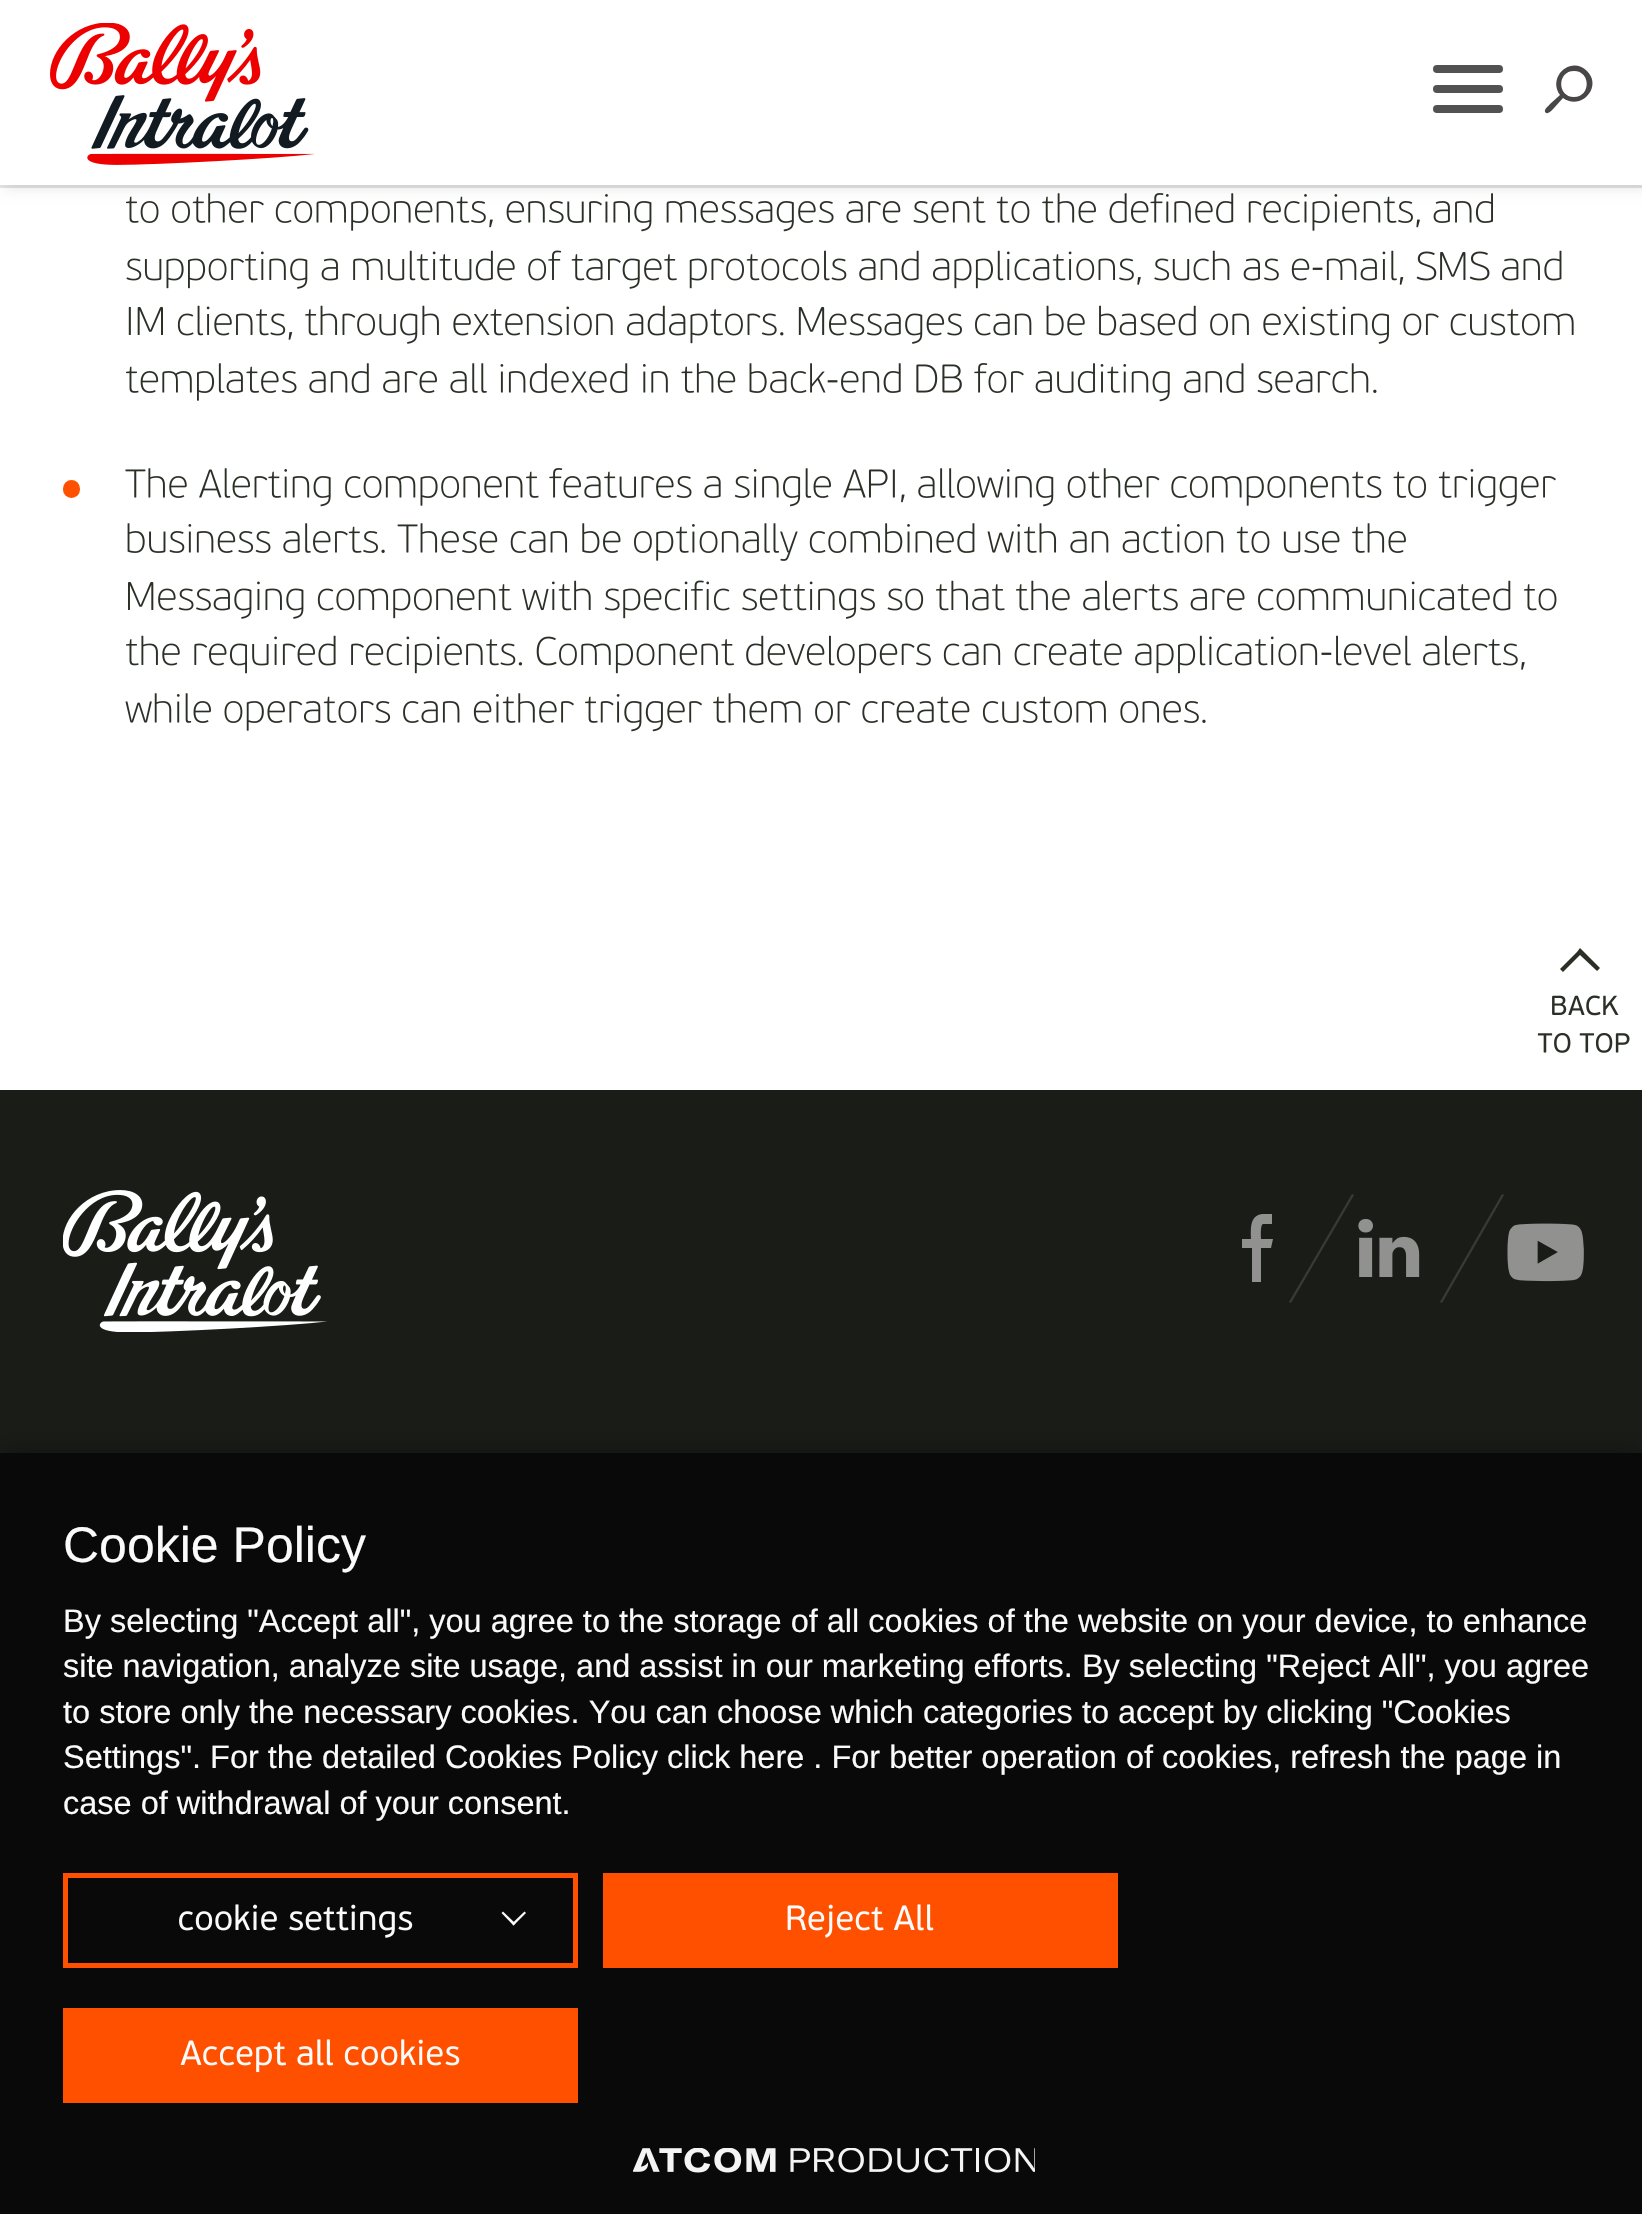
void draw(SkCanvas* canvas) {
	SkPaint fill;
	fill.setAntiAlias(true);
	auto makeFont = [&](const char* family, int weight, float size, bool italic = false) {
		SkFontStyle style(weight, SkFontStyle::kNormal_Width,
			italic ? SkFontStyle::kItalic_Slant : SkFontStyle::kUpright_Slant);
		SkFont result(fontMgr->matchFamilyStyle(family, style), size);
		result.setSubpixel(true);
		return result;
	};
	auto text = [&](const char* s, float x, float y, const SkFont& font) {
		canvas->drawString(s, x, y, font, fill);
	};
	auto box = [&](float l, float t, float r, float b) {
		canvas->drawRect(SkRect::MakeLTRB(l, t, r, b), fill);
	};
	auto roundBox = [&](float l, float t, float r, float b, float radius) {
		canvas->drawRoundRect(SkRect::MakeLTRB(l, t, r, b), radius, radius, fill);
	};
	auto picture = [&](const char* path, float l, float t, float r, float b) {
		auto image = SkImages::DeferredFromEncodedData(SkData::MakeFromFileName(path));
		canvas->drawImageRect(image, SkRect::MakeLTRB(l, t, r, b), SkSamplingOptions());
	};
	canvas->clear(0xFFFFFFFF);
	fill.setColor(0xFFE3E3E3);
	box(0, 185, 1642, 188);
	picture("image1.png", 126, 193, 1493, 232);
	fill.setColor(0x1A000000);
	fill.setMaskFilter(SkMaskFilter::MakeBlur(kNormal_SkBlurStyle, 6));
	canvas->drawRect(SkRect::MakeLTRB(5, 3, 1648, 188), fill);
	fill.setMaskFilter(nullptr);
	fill.setColor(0xFFFFFFFF);
	box(0, 0, 1642, 185);
	picture("image0.png", 50, 23, 315, 165);
	fill.setColor(0xFF535252);
	roundBox(1433, 85, 1503, 93, 4);
	roundBox(1433, 65, 1503, 73, 4);
	roundBox(1433, 105, 1503, 113, 4);
	fill.setColor(0xFF484646);
	canvas->drawPath(SkPathBuilder().moveTo(1587, 71).cubicTo(1571, 55, 1547, 77, 1560, 95).lineTo(1550, 104).cubicTo(1550, 105, 1542, 110, 1546, 113).cubicTo(1549, 114, 1553, 109, 1554, 108).lineTo(1563, 98).cubicTo(1581, 111, 1603, 87, 1587, 71).close().moveTo(1574, 97).cubicTo(1557, 97, 1557, 71, 1574, 71).cubicTo(1591, 71, 1591, 97, 1574, 97).close().detach(), fill);
	picture("image2.png", 126, 250, 1562, 289);
	picture("image3.png", 128, 305, 1574, 344);
	picture("image4.png", 126, 363, 1377, 402);
	fill.setColor(0xFFFF5000);
	roundBox(63, 480, 80, 498, 8.5f);
	picture("image5.png", 125, 468, 1556, 507);
	picture("image6.png", 127, 523, 1406, 561);
	picture("image7.png", 128, 580, 1557, 619);
	picture("image8.png", 126, 635, 1525, 674);
	picture("image9.png", 125, 693, 1206, 732);
	fill.setColor(0xFF1A1C18);
	box(0, 1090, 1642, 1453);
	fill.setColor(0xFF2B3027);
	canvas->drawPath(SkPathBuilder().moveTo(1577, 952).lineTo(1560, 969).lineTo(1563, 972).lineTo(1580, 955).lineTo(1597, 971).lineTo(1600, 968).lineTo(1580, 948).close().detach(), fill);
	picture("image10.png", 1552, 995, 1619, 1016);
	picture("image11.png", 1537, 1032, 1630, 1053);
	picture("image12.png", 63, 1190, 327, 1332);
	fill.setColor(0xFF91918F);
	canvas->drawPath(SkPathBuilder().moveTo(1272, 1214).lineTo(1262, 1214).cubicTo(1249, 1216, 1251, 1230, 1251, 1239).lineTo(1242, 1239).lineTo(1242, 1248).lineTo(1252, 1248).lineTo(1252, 1282).lineTo(1261, 1282).lineTo(1261, 1248).lineTo(1271, 1248).lineTo(1273, 1239).lineTo(1261, 1239).cubicTo(1261, 1237, 1260, 1225, 1263, 1224).lineTo(1272, 1224).close().detach(), fill);
	fill.setColor(0xFF383A35);
	canvas->drawPath(SkPathBuilder().moveTo(1352, 1194).lineTo(1354, 1195).lineTo(1291, 1303).lineTo(1289, 1302).close().detach(), fill);
	picture("image13.png", 1358, 1219, 1420, 1277);
	canvas->drawPath(SkPathBuilder().moveTo(1502, 1194).lineTo(1504, 1195).lineTo(1442, 1303).lineTo(1440, 1302).close().detach(), fill);
	picture("image14.png", 1507, 1223, 1584, 1282);
	fill.setColor(0x5E000000);
	fill.setMaskFilter(SkMaskFilter::MakeBlur(kNormal_SkBlurStyle, 12.5f));
	canvas->drawRect(SkRect::MakeLTRB(0, 1453, 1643, 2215), fill);
	fill.setMaskFilter(nullptr);
	fill.setColor(0xFF0A0909);
	box(0, 1453, 1642, 2214);
	fill.setStyle(SkPaint::kStroke_Style);
	fill.setStrokeWidth(5);
	fill.setColor(0xFFFF5000);
	canvas->drawRect(SkRect::MakeLTRB(65.5f, 1875.5f, 575.5f, 1965.5f), fill);
	picture("image15.png", 179, 1904, 413, 1938);
	fill.setStyle(SkPaint::kFill_Style);
	fill.setColor(0xFFFAFAFA);
	canvas->drawPath(SkPathBuilder().moveTo(524.5f, 1911.5f).lineTo(526, 1913).lineTo(513.5f, 1925.5f).lineTo(512, 1923.5f).close().detach(), fill);
	canvas->drawPath(SkPathBuilder().moveTo(503, 1911.5f).lineTo(515.5f, 1923.5f).lineTo(513.5f, 1925.5f).lineTo(501.5f, 1913).close().detach(), fill);
	fill.setColor(0xFFFF5000);
	box(603, 1873, 1118, 1968);
	picture("image16.png", 787, 1904, 934, 1938);
	box(63, 2008, 578, 2103);
	picture("image17.png", 180, 2039, 460, 2073);
	picture("image18.png", 633, 2148, 1035, 2173);
	auto font1 = makeFont("Liberation Sans", 400, 50);
	fill.setColor(0xFFFAFAFA);
	text("Cookie Policy", 63, 1562, font1);
	auto font2 = makeFont("Liberation Sans", 400, 32.5f);
	text("By selecting \"Accept all\", you agree to the storage of all cookies of the website on your device, to enhance", 63, 1632, font2);
	text("site navigation, analyze site usage, and assist in our marketing efforts. By selecting \"Reject All\", you agree", 63, 1677, font2);
	text("to store only the necessary cookies. You can choose which categories to accept by clicking \"Cookies", 63, 1723, font2);
	text("Settings\". For the detailed Cookies Policy click here . For better operation of cookies, refresh the page in", 63, 1768, font2);
	text("case of withdrawal of your consent.", 63, 1814, font2);
}
